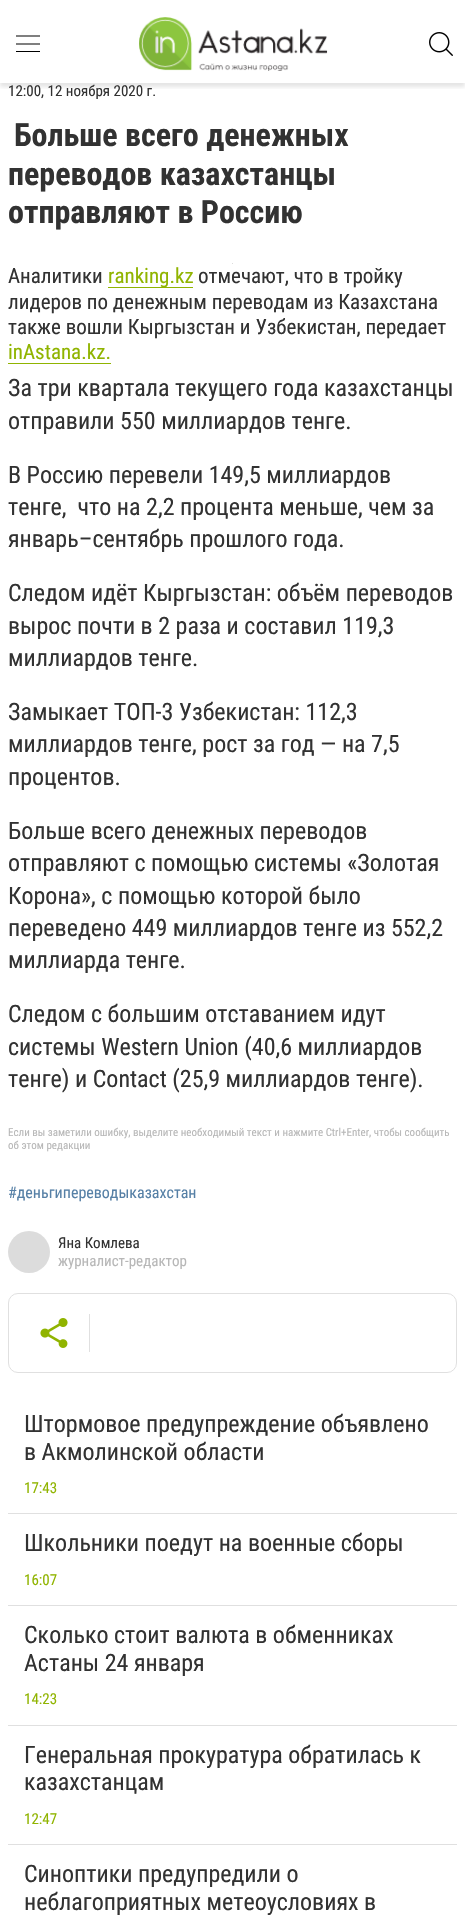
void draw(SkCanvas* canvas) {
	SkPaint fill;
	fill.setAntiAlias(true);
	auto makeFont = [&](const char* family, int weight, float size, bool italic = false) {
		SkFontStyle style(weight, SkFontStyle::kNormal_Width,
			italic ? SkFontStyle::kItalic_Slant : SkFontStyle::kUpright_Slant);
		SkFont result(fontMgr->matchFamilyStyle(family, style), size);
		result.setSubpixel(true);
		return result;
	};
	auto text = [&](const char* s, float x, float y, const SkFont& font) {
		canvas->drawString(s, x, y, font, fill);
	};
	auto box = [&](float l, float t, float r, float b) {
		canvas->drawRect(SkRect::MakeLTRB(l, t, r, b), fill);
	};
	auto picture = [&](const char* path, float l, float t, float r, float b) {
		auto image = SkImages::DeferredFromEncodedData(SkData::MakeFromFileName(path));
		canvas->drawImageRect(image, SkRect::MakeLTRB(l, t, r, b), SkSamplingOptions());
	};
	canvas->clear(0xFFFFFFFF);
	canvas->save();
	canvas->clipRect(SkRect::MakeLTRB(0, 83, 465, 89));
	fill.setColor(0x1A000000);
	fill.setMaskFilter(SkMaskFilter::MakeBlur(kNormal_SkBlurStyle, 2));
	canvas->drawRect(SkRect::MakeLTRB(0, 4, 465, 87), fill);
	fill.setMaskFilter(nullptr);
	canvas->restore();
	fill.setStyle(SkPaint::kStroke_Style);
	fill.setStrokeWidth(1.2f);
	fill.setColor(0xFF000000);
	canvas->drawPath(SkPathBuilder().moveTo(16, 44).lineTo(40, 44).moveTo(16, 36).lineTo(40, 36).detach(), fill);
	fill.setStyle(SkPaint::kFill_Style);
	box(16, 51, 40, 52);
	picture("image0.png", 139, 17, 328, 71);
	picture("image1.png", 429, 32, 453, 56);
	fill.setColor(0xFFDCDCDC);
	box(232, 263, 233, 264);
	fill.setColor(0xFF90B400);
	box(108, 287, 193, 288);
	box(8, 363, 111, 364);
	fill.setColor(0xFFDCDCDC);
	canvas->drawCircle(29, 1252, 21, fill);
	fill.setStyle(SkPaint::kStroke_Style);
	fill.setStrokeWidth(1);
	fill.setColor(0xFFE0E0E0);
	canvas->drawRoundRect(SkRect::MakeLTRB(8.5f, 1293.5f, 456.5f, 1372.5f), 9.5f, 9.5f, fill);
	picture("image2.png", 40, 1318, 68, 1348);
	fill.setStyle(SkPaint::kFill_Style);
	box(89, 1314, 90, 1352);
	box(8, 1513, 457, 1514);
	box(8, 1605, 457, 1606);
	box(8, 1725, 457, 1726);
	box(8, 1844, 457, 1845);
	auto font1 = makeFont("Roboto Condensed", 400, 15);
	fill.setColor(0xFF323232);
	text("12:00, 12 ноября 2020 г.", 8, 96, font1);
	auto font2 = makeFont("Roboto Condensed", 700, 32);
	text("Больше всего денежных", 14, 146, font2);
	text("переводов казахстанцы", 8, 185, font2);
	text("отправляют в Россию", 8, 223, font2);
	auto font3 = makeFont("Roboto Condensed", 400, 21);
	text("Аналитики", 8, 283, font3);
	fill.setColor(0xFF90B400);
	text("ranking.kz", 108, 283, font3);
	fill.setColor(0xFF323232);
	text("отмечают, что в тройку", 198, 283, font3);
	text("лидеров по денежным переводам из Казахстана", 8, 309, font3);
	text("также вошли Кыргызстан и Узбекистан, передает", 8, 334, font3);
	fill.setColor(0xFF90B400);
	text("inAstana.kz.", 8, 359, font3);
	auto font4 = makeFont("Roboto Condensed", 400, 24);
	fill.setColor(0xFF323232);
	text("За три квартала текущего года казахстанцы", 8, 396, font4);
	text("отправили 550 миллиардов тенге.", 8, 429, font4);
	text("В Россию перевели 149,5 миллиардов", 8, 483, font4);
	text("тенге,  что на 2,2 процента меньше, чем за", 8, 515, font4);
	text("январь–сентябрь прошлого года.", 8, 547, font4);
	text("Следом идёт Кыргызстан: объём переводов", 8, 601, font4);
	text("вырос почти в 2 раза и составил 119,3", 8, 634, font4);
	text("миллиардов тенге.", 8, 666, font4);
	text("Замыкает ТОП-3 Узбекистан: 112,3", 8, 720, font4);
	text("миллиардов тенге, рост за год — на 7,5", 8, 752, font4);
	text("процентов.", 8, 785, font4);
	text("Больше всего денежных переводов", 8, 839, font4);
	text("отправляют с помощью системы «Золотая", 8, 871, font4);
	text("Корона», с помощью которой было", 8, 904, font4);
	text("переведено 449 миллиардов тенге из 552,2", 8, 936, font4);
	text("миллиарда тенге.", 8, 968, font4);
	text("Следом с большим отставанием идут", 8, 1022, font4);
	text("системы Western Union (40,6 миллиардов", 8, 1055, font4);
	text("тенге) и Contact (25,9 миллиардов тенге).", 8, 1087, font4);
	auto font5 = makeFont("Roboto Condensed", 400, 11);
	fill.setColor(0xFFB7B7B7);
	text("Если вы заметили ошибку, выделите необходимый текст и нажмите Ctrl+Enter, чтобы сообщить", 8, 1136, font5);
	text("об этом редакции", 8, 1149, font5);
	auto font6 = makeFont("Roboto Condensed", 400, 16);
	fill.setColor(0xFF5680A6);
	text("#деньгипереводыказахстан", 8, 1198, font6);
	fill.setColor(0xFF323232);
	text("Яна Комлева", 58, 1248, font1);
	fill.setColor(0xFFB7B7B7);
	text("журналист-редактор", 58, 1266, font1);
	fill.setColor(0xFF323232);
	text("Штормовое предупреждение объявлено", 24, 1432, font4);
	text("в Акмолинской области", 24, 1460, font4);
	fill.setColor(0xFF90B400);
	text("17:43", 24, 1493, font1);
	fill.setColor(0xFF323232);
	text("Школьники поедут на военные сборы", 24, 1551, font4);
	fill.setColor(0xFF90B400);
	text("16:07", 24, 1585, font1);
	fill.setColor(0xFF323232);
	text("Сколько стоит валюта в обменниках", 24, 1643, font4);
	text("Астаны 24 января", 24, 1671, font4);
	fill.setColor(0xFF90B400);
	text("14:23", 24, 1704, font1);
	fill.setColor(0xFF323232);
	text("Генеральная прокуратура обратилась к", 24, 1763, font4);
	text("казахстанцам", 24, 1790, font4);
	fill.setColor(0xFF90B400);
	text("12:47", 24, 1824, font1);
	fill.setColor(0xFF323232);
	text("Синоптики предупредили о", 24, 1882, font4);
	text("неблагоприятных метеоусловиях в", 24, 1910, font4);
}
